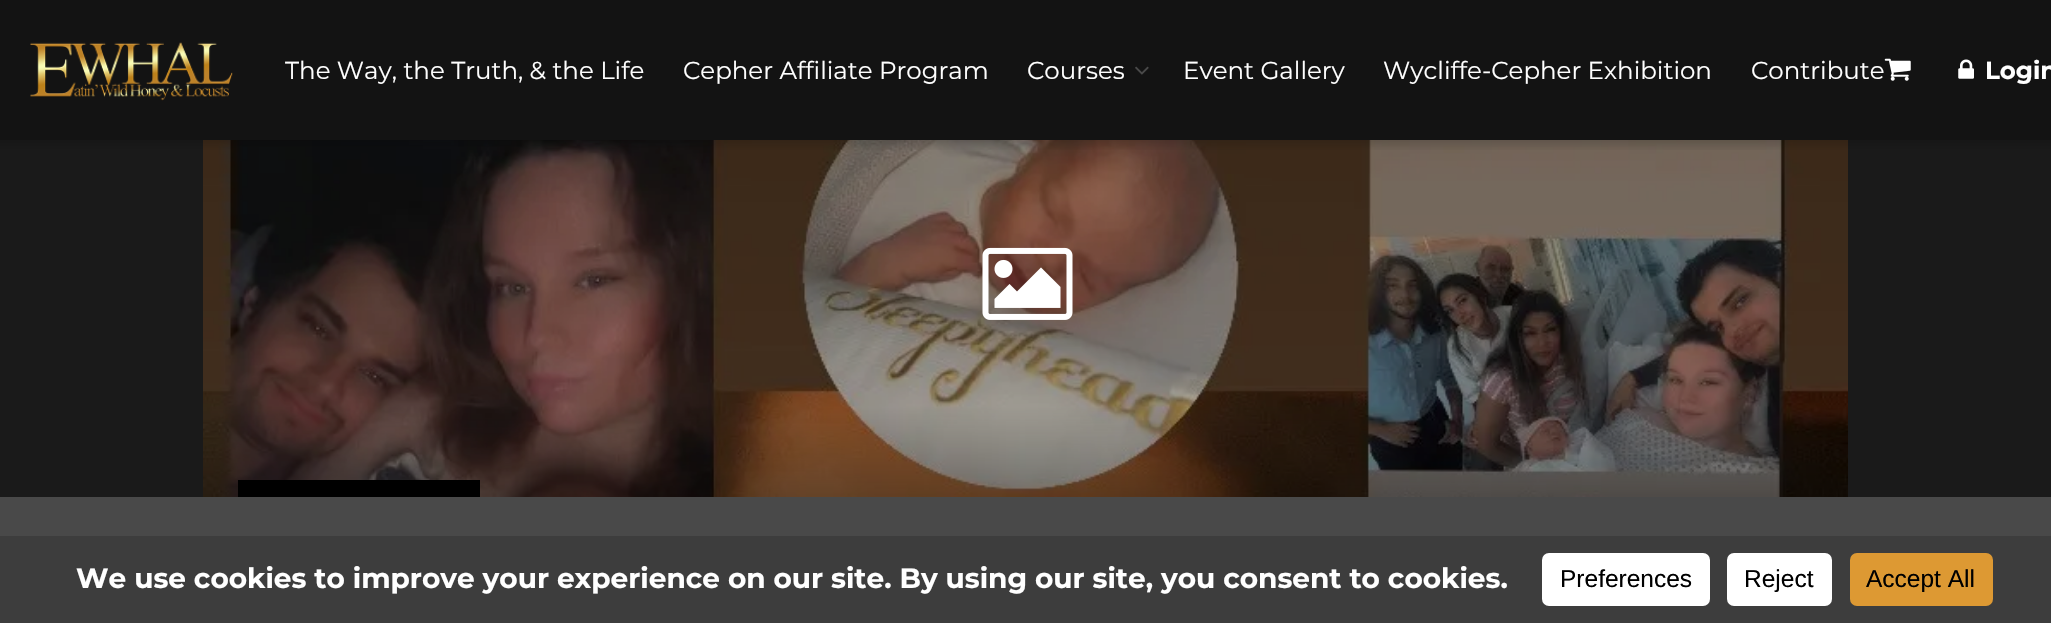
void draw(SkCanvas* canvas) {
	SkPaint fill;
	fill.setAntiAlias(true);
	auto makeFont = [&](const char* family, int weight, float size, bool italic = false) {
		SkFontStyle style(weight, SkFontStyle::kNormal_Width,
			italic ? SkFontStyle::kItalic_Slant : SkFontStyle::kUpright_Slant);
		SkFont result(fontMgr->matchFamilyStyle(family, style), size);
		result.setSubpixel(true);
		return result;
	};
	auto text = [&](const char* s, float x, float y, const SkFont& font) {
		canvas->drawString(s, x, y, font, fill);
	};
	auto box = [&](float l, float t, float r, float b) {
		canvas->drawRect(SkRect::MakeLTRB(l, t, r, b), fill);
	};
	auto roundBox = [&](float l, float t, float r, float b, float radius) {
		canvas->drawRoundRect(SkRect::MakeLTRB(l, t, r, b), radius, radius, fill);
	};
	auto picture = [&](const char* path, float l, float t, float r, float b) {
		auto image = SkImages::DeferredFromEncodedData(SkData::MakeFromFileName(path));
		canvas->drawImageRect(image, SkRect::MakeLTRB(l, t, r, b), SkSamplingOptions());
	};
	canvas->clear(0xFF1A1A1A);
	fill.setColor(0xFF131313);
	box(0, 0, 2051, 140);
	picture("image0.png", 30, 42, 233, 101);
	picture("image1.png", 1135, 66, 1149, 75);
	picture("image2.png", 1884, 58, 1911, 81);
	picture("image3.png", 1958, 59, 1974, 79);
	picture("image4.png", 203, 140, 1848, 497);
	{
		const SkColor colors[] = {0x26000000, 0x00000000};
		const float stops[] = {0, 1};
		const SkPoint ends[] = {{1026, 140}, {1026, 152}};
		fill.setShader(SkGradientShader::MakeLinear(ends, colors, stops, 2, SkTileMode::kClamp));
		fill.setAlpha(255);
	}
	box(0, 140, 2051, 150);
	picture("image5.png", 982, 247, 1073, 320);
	fill.setShader(nullptr);
	fill.setColor(0xFF000000);
	box(238, 480, 480, 497);
	fill.setColor(0xFF494949);
	box(0, 497, 2051, 536);
	fill.setColor(0xFF3D3D3D);
	box(0, 536, 2051, 623);
	fill.setColor(0xFFFFFFFF);
	roundBox(1542, 553, 1710, 606, 7);
	roundBox(1727, 553, 1832, 606, 7);
	fill.setColor(0xFFDD9933);
	roundBox(1850, 553, 1993, 606, 7);
	auto font1 = makeFont("Montserrat", 400, 24.5f);
	fill.setColor(0xFFFFFFFF);
	text("The Way, the Truth, & the Life", 285, 79, font1);
	text("Cepher Affiliate Program", 683, 79, font1);
	text("Courses", 1027, 79, font1);
	text("Event Gallery", 1183, 79, font1);
	text("Wycliffe-Cepher Exhibition", 1383, 79, font1);
	text("Contribute", 1751, 79, font1);
	auto font2 = makeFont("Montserrat", 700, 24.5f);
	text("Login", 1985, 79, font2);
	auto font3 = makeFont("Montserrat", 700, 28);
	text("We use cookies to improve your experience on our site. By using our site, you consent to cookies.", 76, 588, font3);
	auto font4 = makeFont("Liberation Sans", 400, 24.5f);
	fill.setColor(0xFF000000);
	text("Preferences", 1560, 587, font4);
	text("Reject", 1744, 587, font4);
	text("Accept All", 1866, 587, font4);
}
